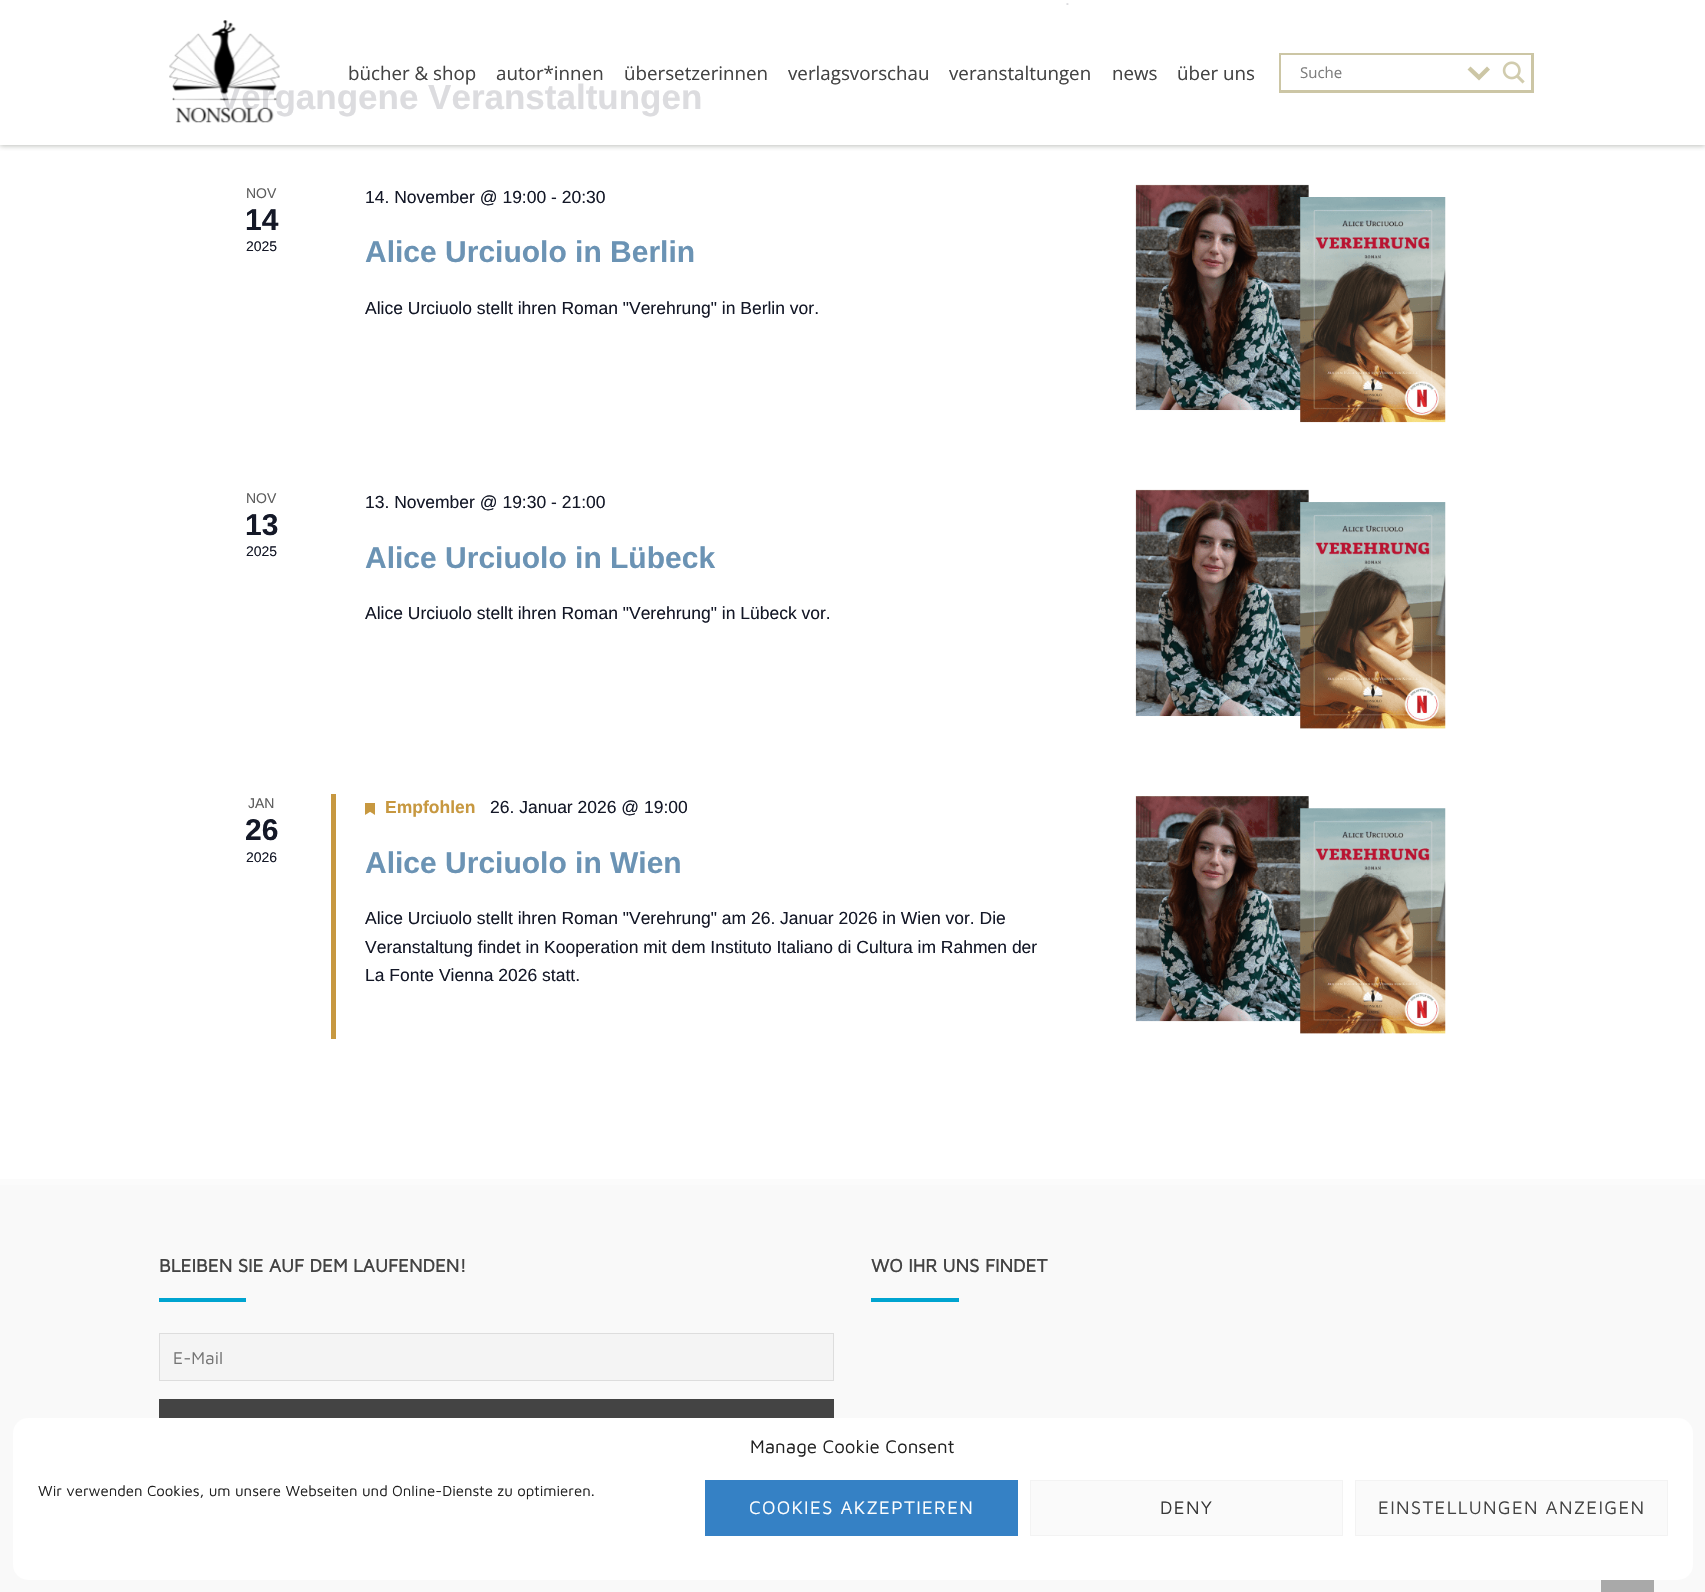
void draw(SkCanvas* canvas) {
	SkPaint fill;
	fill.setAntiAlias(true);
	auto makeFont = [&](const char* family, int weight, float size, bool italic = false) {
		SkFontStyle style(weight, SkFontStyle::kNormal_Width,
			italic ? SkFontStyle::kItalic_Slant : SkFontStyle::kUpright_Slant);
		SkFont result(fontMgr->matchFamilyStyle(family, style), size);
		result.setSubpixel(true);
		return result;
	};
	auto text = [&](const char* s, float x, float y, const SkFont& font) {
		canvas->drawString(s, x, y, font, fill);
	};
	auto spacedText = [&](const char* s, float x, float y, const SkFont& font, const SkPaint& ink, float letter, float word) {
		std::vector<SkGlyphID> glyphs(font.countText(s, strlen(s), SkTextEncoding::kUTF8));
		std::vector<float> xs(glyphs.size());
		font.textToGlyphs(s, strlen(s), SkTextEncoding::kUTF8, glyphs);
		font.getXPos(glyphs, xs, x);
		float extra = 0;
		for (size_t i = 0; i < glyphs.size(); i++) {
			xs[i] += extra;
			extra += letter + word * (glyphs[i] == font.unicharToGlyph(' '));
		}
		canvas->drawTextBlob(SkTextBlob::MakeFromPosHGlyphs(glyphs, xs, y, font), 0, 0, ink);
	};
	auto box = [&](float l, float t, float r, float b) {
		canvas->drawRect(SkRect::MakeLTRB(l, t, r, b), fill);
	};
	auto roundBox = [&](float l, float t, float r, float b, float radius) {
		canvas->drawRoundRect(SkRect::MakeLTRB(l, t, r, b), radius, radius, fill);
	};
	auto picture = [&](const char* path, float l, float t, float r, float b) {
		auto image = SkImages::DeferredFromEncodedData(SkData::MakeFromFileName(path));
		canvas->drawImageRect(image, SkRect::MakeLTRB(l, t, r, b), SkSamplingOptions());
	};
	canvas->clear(0xFFFFFFFF);
	picture("image0.png", 1135, 184, 1446, 423);
	picture("image1.png", 1135, 489, 1446, 729);
	fill.setColor(0xFFC79840);
	box(331, 794, 336, 1039);
	picture("image2.png", 365, 803, 375, 815);
	picture("image3.png", 1135, 796, 1446, 1034);
	canvas->save();
	canvas->clipRect(SkRect::MakeLTRB(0, 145, 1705, 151));
	fill.setColor(0xBFA7A9A4);
	fill.setMaskFilter(SkMaskFilter::MakeBlur(kNormal_SkBlurStyle, 2.5f));
	canvas->drawRect(SkRect::MakeLTRB(0, 1, 1705, 146), fill);
	fill.setMaskFilter(nullptr);
	canvas->restore();
	fill.setStyle(SkPaint::kStroke_Style);
	fill.setStrokeWidth(3);
	fill.setColor(0xFFCCC6A5);
	canvas->drawRect(SkRect::MakeLTRB(1280.5f, 54.5f, 1532.5f, 91.5f), fill);
	fill.setStyle(SkPaint::kFill_Style);
	fill.setColor(0xFFFFFFFF);
	box(1281, 55, 1531, 90);
	fill.setColor(0xFFCCC6A5);
	canvas->drawPath(SkPathBuilder().moveTo(1487, 66.5f).lineTo(1490, 69.5f).lineTo(1479, 80.5f).lineTo(1467.5f, 69.5f).lineTo(1470.5f, 66.5f).lineTo(1479, 74.5f).close().detach(), fill);
	picture("image5.png", 1502, 61, 1525, 84);
	fill.setColor(0xFFF9F9F9);
	box(0, 1185, 1705, 1592);
	fill.setColor(0xFFFBFBFB);
	box(0, 1179, 1705, 1185);
	fill.setColor(0xFF00A4D0);
	box(159, 1298, 246, 1302);
	fill.setColor(0xFFF4F4F4);
	canvas->drawRect(SkRect::MakeLTRB(159.5f, 1333.5f, 833.5f, 1380.5f), fill);
	fill.setStyle(SkPaint::kStroke_Style);
	fill.setStrokeWidth(1);
	fill.setColor(0xFFDDDDDD);
	canvas->drawRect(SkRect::MakeLTRB(159.5f, 1333.5f, 833.5f, 1380.5f), fill);
	fill.setStyle(SkPaint::kFill_Style);
	fill.setColor(0xFF444444);
	box(159, 1399, 834, 1418);
	fill.setColor(0xFF00A4D0);
	box(871, 1298, 959, 1302);
	fill.setColor(0xFFFFFFFF);
	roundBox(13, 1418, 1693, 1580, 15);
	fill.setColor(0xFF3581C5);
	box(705, 1480, 1018, 1536);
	fill.setColor(0xFFFAFAFA);
	canvas->drawRect(SkRect::MakeLTRB(1030.5f, 1480.5f, 1342.5f, 1535.5f), fill);
	fill.setStyle(SkPaint::kStroke_Style);
	fill.setColor(0xFFF3F3F3);
	canvas->drawRect(SkRect::MakeLTRB(1030.5f, 1480.5f, 1342.5f, 1535.5f), fill);
	fill.setStyle(SkPaint::kFill_Style);
	fill.setColor(0xFFFAFAFA);
	canvas->drawRect(SkRect::MakeLTRB(1355.5f, 1480.5f, 1667.5f, 1535.5f), fill);
	fill.setStyle(SkPaint::kStroke_Style);
	fill.setColor(0xFFF3F3F3);
	canvas->drawRect(SkRect::MakeLTRB(1355.5f, 1480.5f, 1667.5f, 1535.5f), fill);
	fill.setStyle(SkPaint::kFill_Style);
	fill.setColor(0xFFA9A9A9);
	box(1601, 1580, 1654, 1592);
	auto font1 = makeFont("Liberation Sans", 400, 17.5f);
	fill.setColor(0xFFDCDCDF);
	text(".", 1065, 5, font1);
	auto font2 = makeFont("Liberation Sans", 700, 35);
	text("Vergangene Veranstaltungen", 218, 109, font2);
	auto font3 = makeFont("Liberation Sans", 400, 14);
	fill.setColor(0xFF5D5D5D);
	text("NOV", 246, 198, font3);
	auto font4 = makeFont("Liberation Sans", 700, 30);
	fill.setColor(0xFF141827);
	text("14", 245, 230, font4);
	text("2025", 246, 251, font3);
	text("14. November @ 19:00 - 20:30", 365, 203, font1);
	fill.setColor(0xFF6B93B4);
	text("Alice Urciuolo in Berlin", 365, 262, font4);
	fill.setColor(0xFF141827);
	text("Alice Urciuolo stellt ihren Roman \"Verehrung\" in Berlin vor.", 365, 314, font1);
	fill.setColor(0xFF5D5D5D);
	text("NOV", 246, 503, font3);
	fill.setColor(0xFF141827);
	text("13", 245, 535, font4);
	text("2025", 246, 556, font3);
	text("13. November @ 19:30 - 21:00", 365, 508, font1);
	fill.setColor(0xFF6B93B4);
	text("Alice Urciuolo in Lübeck", 365, 568, font4);
	fill.setColor(0xFF141827);
	text("Alice Urciuolo stellt ihren Roman \"Verehrung\" in Lübeck vor.", 365, 619, font1);
	fill.setColor(0xFF5D5D5D);
	text("JAN", 248, 808, font3);
	fill.setColor(0xFF141827);
	text("26", 245, 840, font4);
	text("2026", 246, 862, font3);
	auto font5 = makeFont("Liberation Sans", 700, 17.5f);
	fill.setColor(0xFFC79840);
	text("Empfohlen", 385, 813, font5);
	fill.setColor(0xFF141827);
	text("26. Januar 2026 @ 19:00", 490, 813, font1);
	fill.setColor(0xFF6B93B4);
	text("Alice Urciuolo in Wien", 365, 873, font4);
	fill.setColor(0xFF141827);
	text("Alice Urciuolo stellt ihren Roman \"Verehrung\" am 26. Januar 2026 in Wien vor. Die", 365, 924, font1);
	text("Veranstaltung findet in Kooperation mit dem Instituto Italiano di Cultura im Rahmen der", 365, 953, font1);
	text("La Fonte Vienna 2026 statt.", 365, 981, font1);
	picture("image4.png", 169, 20, 280, 123);
	auto font6 = makeFont("Open Sans", 400, 18.75f);
	fill.setColor(0xFF434343);
	text("bücher & shop", 348, 80, font6);
	text("autor*innen", 496, 80, font6);
	text("übersetzerinnen", 624, 80, font6);
	text("verlagsvorschau", 788, 80, font6);
	text("veranstaltungen", 949, 80, font6);
	text("news", 1112, 80, font6);
	text("über uns", 1177, 80, font6);
	auto font7 = makeFont("Open Sans", 400, 15);
	fill.setColor(0xFF7D7D7D);
	text("Suche", 1300, 78, font7);
	auto font8 = makeFont("Maven Pro", 700, 18.75f);
	fill.setColor(0xFF434343);
	text("BLEIBEN SIE AUF DEM LAUFENDEN!", 159, 1272, font8);
	auto font9 = makeFont("Maven Pro", 400, 17.5f);
	fill.setColor(0xFF757575);
	text("E-Mail", 173, 1364, font9);
	fill.setColor(0xFF434343);
	text("WO IHR UNS FINDET", 871, 1272, font8);
	auto font10 = makeFont("Maven Pro", 400, 18.75f);
	fill.setColor(0xFF222222);
	text("Manage Cookie Consent", 750, 1453, font10);
	auto font11 = makeFont("Maven Pro", 400, 15);
	text("Wir verwenden Cookies, um unsere Webseiten und Online-Dienste zu optimieren.", 38, 1496, font11);
	fill.setColor(0xFFFFFFFF);
	spacedText("COOKIES AKZEPTIEREN", 749, 1514, font10, fill, 1.25f, 0);
	fill.setColor(0xFF383838);
	spacedText("DENY", 1160, 1514, font10, fill, 1.25f, 0);
	fill.setColor(0xFF434343);
	spacedText("EINSTELLUNGEN ANZEIGEN", 1378, 1514, font10, fill, 1.25f, 0);
}
